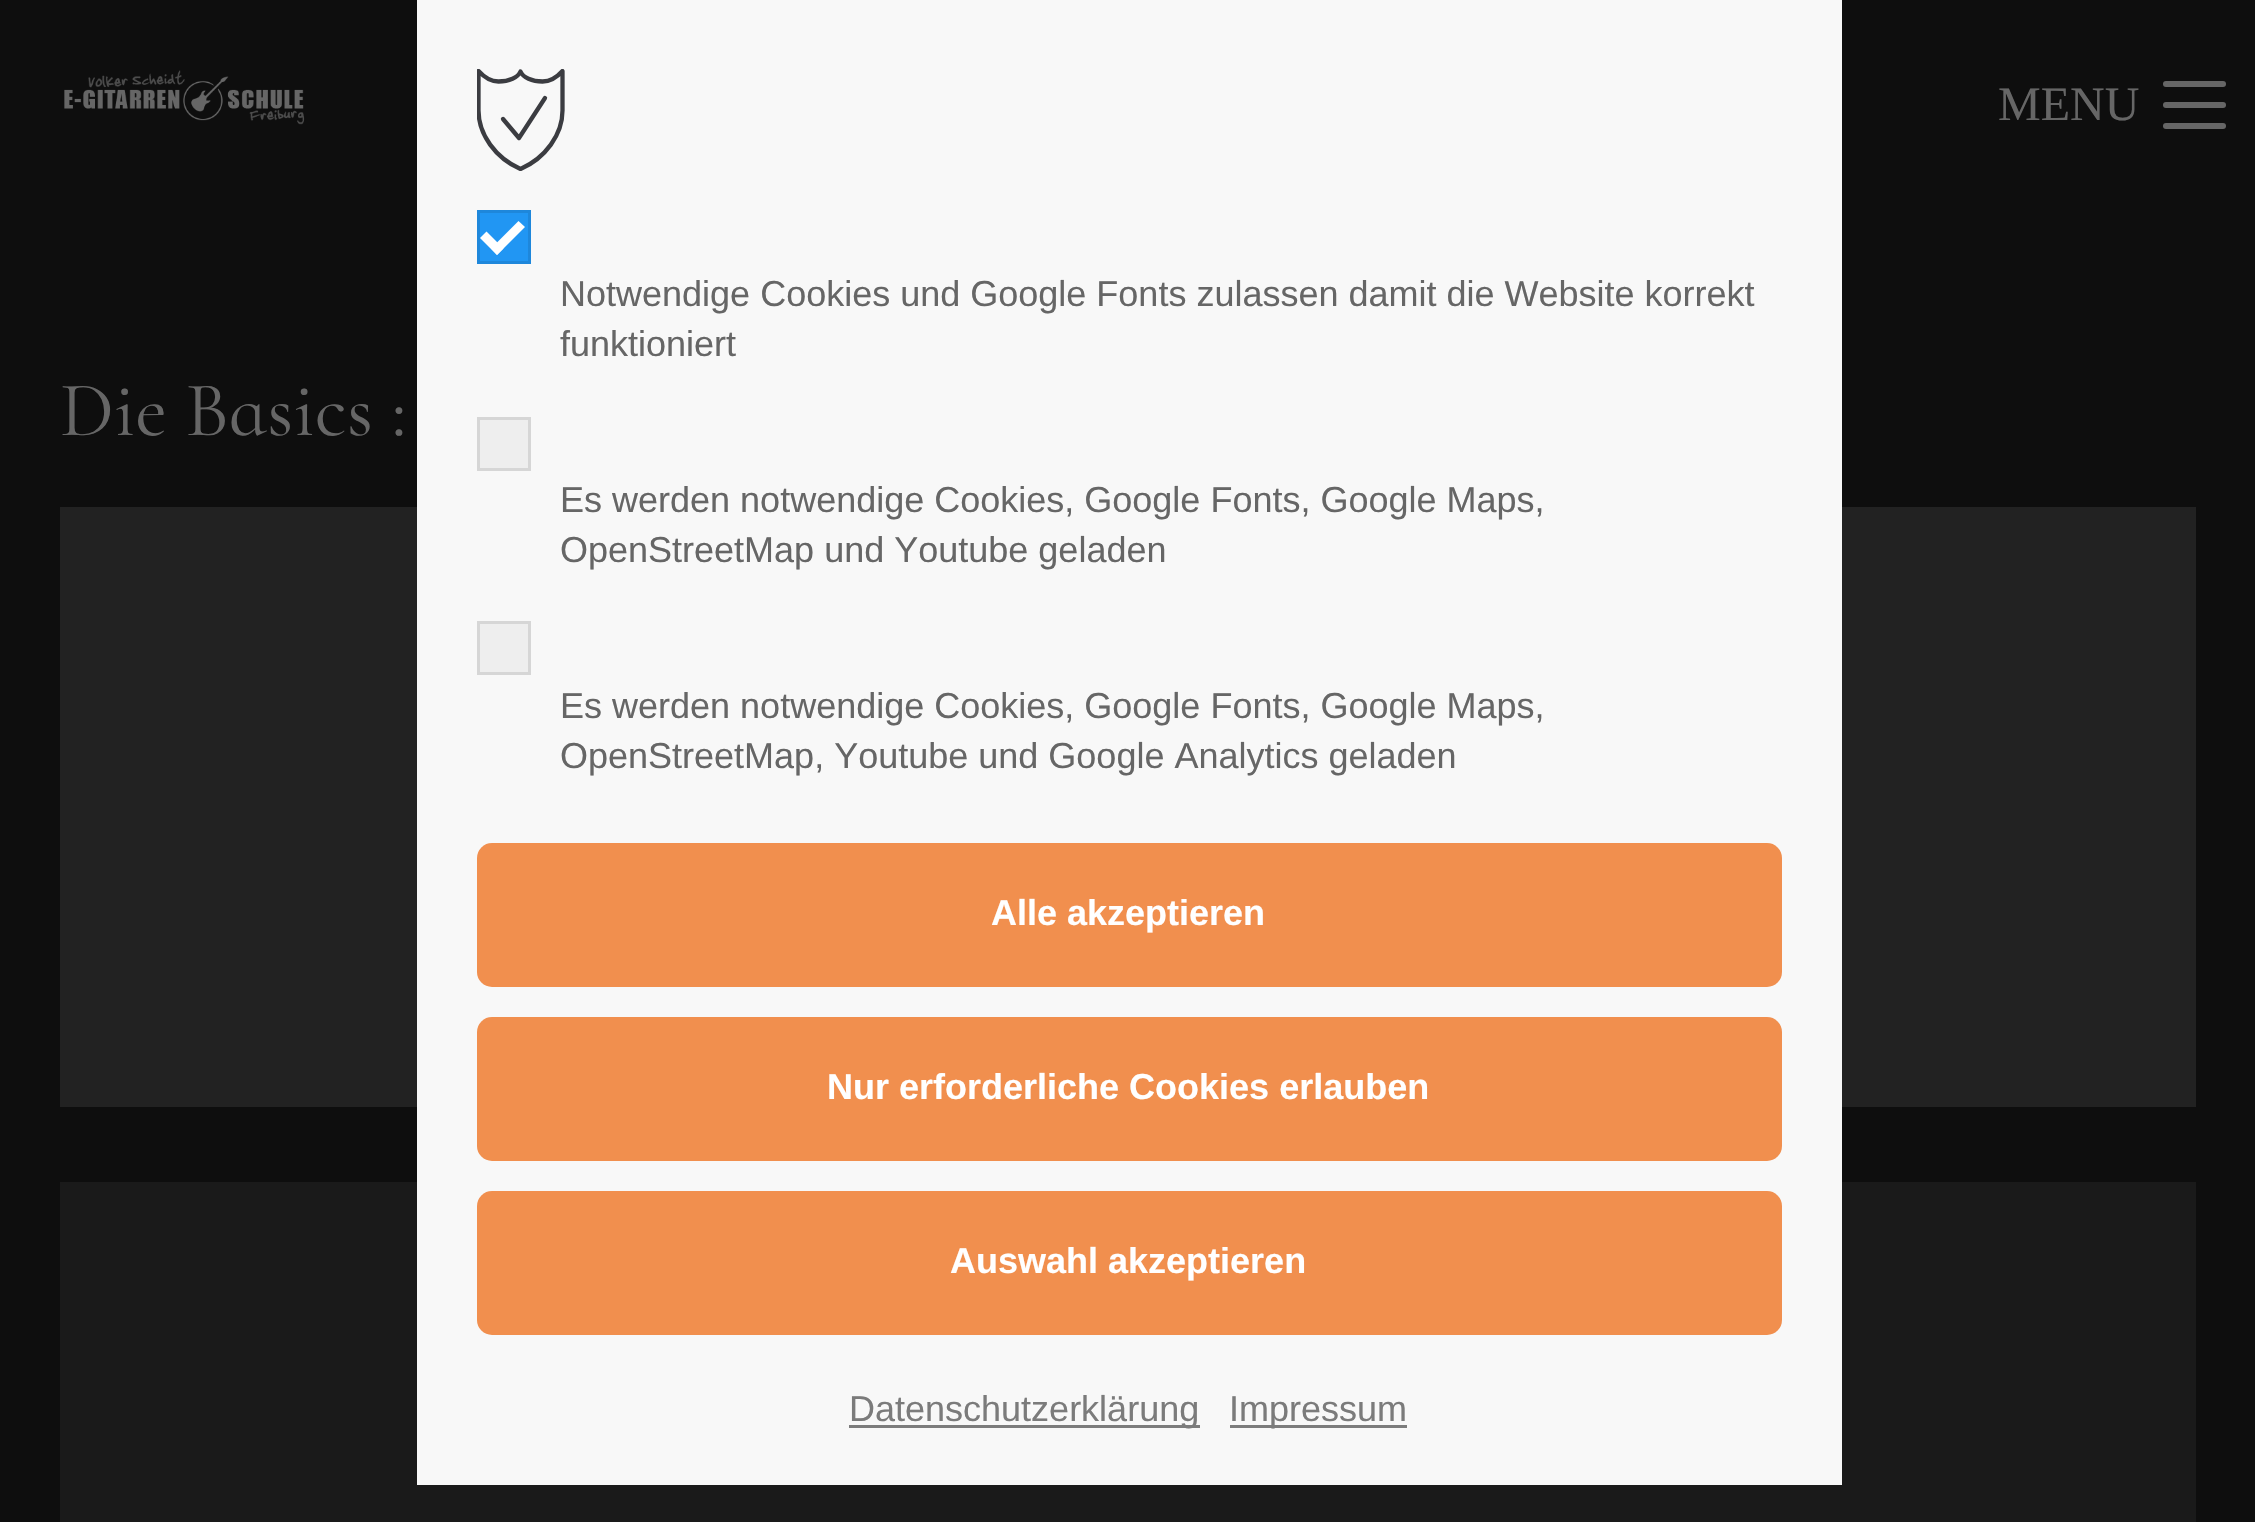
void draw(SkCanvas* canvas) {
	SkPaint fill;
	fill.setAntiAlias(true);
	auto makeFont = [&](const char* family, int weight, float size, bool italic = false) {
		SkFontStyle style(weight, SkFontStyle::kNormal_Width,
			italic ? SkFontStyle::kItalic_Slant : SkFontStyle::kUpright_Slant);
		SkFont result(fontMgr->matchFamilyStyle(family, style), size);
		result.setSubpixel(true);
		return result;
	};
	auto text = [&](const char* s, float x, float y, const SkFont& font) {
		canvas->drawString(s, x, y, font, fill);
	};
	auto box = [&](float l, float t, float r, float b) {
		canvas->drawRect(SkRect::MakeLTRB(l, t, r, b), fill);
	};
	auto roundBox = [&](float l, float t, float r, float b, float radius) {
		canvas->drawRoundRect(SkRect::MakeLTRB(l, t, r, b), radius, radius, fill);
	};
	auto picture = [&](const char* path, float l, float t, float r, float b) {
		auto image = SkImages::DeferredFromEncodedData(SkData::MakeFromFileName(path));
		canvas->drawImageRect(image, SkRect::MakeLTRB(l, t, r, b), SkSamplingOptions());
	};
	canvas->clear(0xFF0E0E0E);
	picture("image0.png", 64, 70, 305, 125);
	fill.setColor(0xFF666666);
	roundBox(2163, 102, 2226, 108, 3);
	roundBox(2163, 81, 2226, 87, 3);
	roundBox(2163, 123, 2226, 129, 3);
	fill.setColor(0xFF222222);
	box(60, 507, 2196, 1107);
	fill.setColor(0xFF1A1A1A);
	box(60, 1182, 2196, 1522);
	fill.setColor(0xFFF8F8F8);
	box(417, 0, 1842, 1485);
	canvas->save();
	canvas->clipRect(SkRect::MakeLTRB(477, 69, 567, 171));
	fill.setStyle(SkPaint::kStroke_Style);
	fill.setStrokeWidth(4.3f);
	fill.setStrokeCap(SkPaint::kRound_Cap);
	fill.setStrokeJoin(SkPaint::kRound_Join);
	fill.setColor(0xFF3B3C41);
	canvas->drawPath(SkPathBuilder().moveTo(520.5f, 169).cubicTo(495.5f, 158, 478.5f, 134.5f, 478.5f, 110.5f).lineTo(478.5f, 71).cubicTo(482.5f, 75.5f, 490, 81.5f, 498.5f, 81.5f).cubicTo(509, 81.5f, 518, 77.5f, 520.5f, 71.5f).cubicTo(523, 77.5f, 532, 81.5f, 542.5f, 81.5f).cubicTo(551, 81.5f, 558.5f, 75.5f, 562.5f, 71).lineTo(562.5f, 110.5f).cubicTo(562.5f, 134.5f, 545.5f, 158, 520.5f, 169).close().detach(), fill);
	canvas->restore();
	canvas->drawPath(SkPathBuilder().moveTo(503, 119).lineTo(519, 138).lineTo(545, 98).detach(), fill);
	fill.setStyle(SkPaint::kFill_Style);
	fill.setColor(0xFF2196F3);
	canvas->drawRect(SkRect::MakeLTRB(478.5f, 211.5f, 529.5f, 262.5f), fill);
	fill.setStyle(SkPaint::kStroke_Style);
	fill.setStrokeWidth(3);
	fill.setStrokeCap(SkPaint::kButt_Cap);
	fill.setStrokeJoin(SkPaint::kMiter_Join);
	fill.setColor(0xFF1E87DB);
	canvas->drawRect(SkRect::MakeLTRB(478.5f, 211.5f, 529.5f, 262.5f), fill);
	fill.setStyle(SkPaint::kFill_Style);
	fill.setColor(0xFFFFFFFF);
	canvas->drawPath(SkPathBuilder().moveTo(518.5f, 221).lineTo(525, 227).lineTo(497, 255).lineTo(491, 248.5f).close().detach(), fill);
	canvas->drawPath(SkPathBuilder().moveTo(486.5f, 231.5f).lineTo(503.5f, 248.5f).lineTo(497, 255).lineTo(480, 238).close().detach(), fill);
	fill.setColor(0xFFEEEEEE);
	canvas->drawRect(SkRect::MakeLTRB(478.5f, 418.5f, 529.5f, 469.5f), fill);
	fill.setStyle(SkPaint::kStroke_Style);
	fill.setColor(0xFFD6D6D6);
	canvas->drawRect(SkRect::MakeLTRB(478.5f, 418.5f, 529.5f, 469.5f), fill);
	fill.setStyle(SkPaint::kFill_Style);
	fill.setColor(0xFFEEEEEE);
	canvas->drawRect(SkRect::MakeLTRB(478.5f, 622.5f, 529.5f, 673.5f), fill);
	fill.setStyle(SkPaint::kStroke_Style);
	fill.setColor(0xFFD6D6D6);
	canvas->drawRect(SkRect::MakeLTRB(478.5f, 622.5f, 529.5f, 673.5f), fill);
	fill.setStyle(SkPaint::kFill_Style);
	fill.setColor(0xFFF18F4E);
	roundBox(477, 843, 1782, 987, 15);
	roundBox(477, 1017, 1782, 1161, 15);
	roundBox(477, 1191, 1782, 1335, 15);
	fill.setColor(0xFF7C7C7C);
	box(849, 1425, 1200, 1428);
	box(1230, 1425, 1407, 1428);
	auto font1 = makeFont("Liberation Serif", 400, 48);
	fill.setColor(0xFF666666);
	text("MENU", 1998, 120, font1);
	auto font2 = makeFont("Cormorant Infant", 400, 78);
	text("Die Basics :", 60, 435, font2);
	auto font3 = makeFont("Liberation Sans", 400, 36);
	text("Notwendige Cookies und Google Fonts zulassen damit die Website korrekt", 560, 306, font3);
	text("funktioniert", 560, 356, font3);
	text("Es werden notwendige Cookies, Google Fonts, Google Maps,", 560, 512, font3);
	text("OpenStreetMap und Youtube geladen", 560, 562, font3);
	text("Es werden notwendige Cookies, Google Fonts, Google Maps,", 560, 718, font3);
	text("OpenStreetMap, Youtube und Google Analytics geladen", 560, 768, font3);
	auto font4 = makeFont("Liberation Sans", 700, 36);
	fill.setColor(0xFFFFFFFF);
	text("Alle akzeptieren", 991, 925, font4);
	text("Nur erforderliche Cookies erlauben", 827, 1099, font4);
	text("Auswahl akzeptieren", 950, 1273, font4);
	fill.setColor(0xFF7B7B7B);
	text("Datenschutzerklärung", 849, 1421, font3);
	text("Impressum", 1229, 1421, font3);
}
